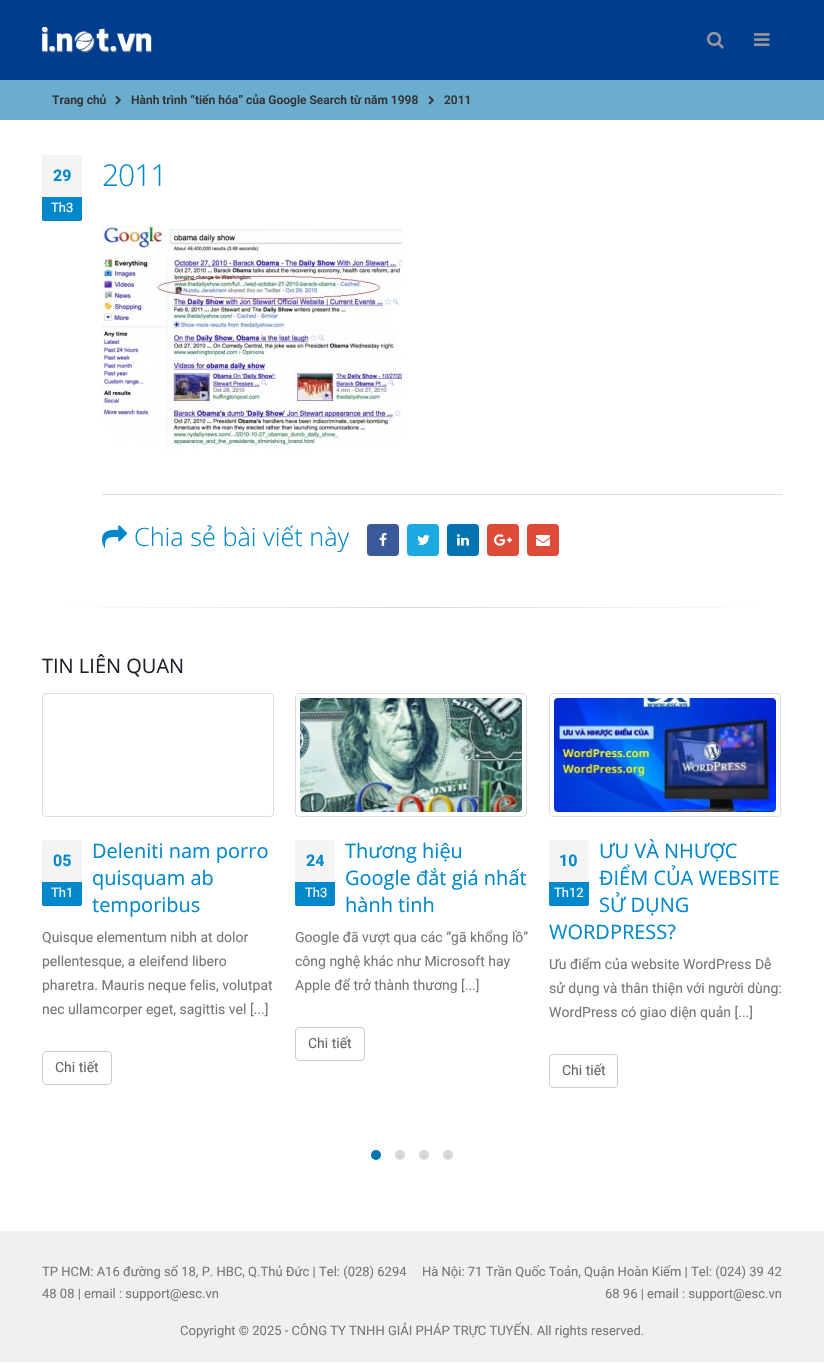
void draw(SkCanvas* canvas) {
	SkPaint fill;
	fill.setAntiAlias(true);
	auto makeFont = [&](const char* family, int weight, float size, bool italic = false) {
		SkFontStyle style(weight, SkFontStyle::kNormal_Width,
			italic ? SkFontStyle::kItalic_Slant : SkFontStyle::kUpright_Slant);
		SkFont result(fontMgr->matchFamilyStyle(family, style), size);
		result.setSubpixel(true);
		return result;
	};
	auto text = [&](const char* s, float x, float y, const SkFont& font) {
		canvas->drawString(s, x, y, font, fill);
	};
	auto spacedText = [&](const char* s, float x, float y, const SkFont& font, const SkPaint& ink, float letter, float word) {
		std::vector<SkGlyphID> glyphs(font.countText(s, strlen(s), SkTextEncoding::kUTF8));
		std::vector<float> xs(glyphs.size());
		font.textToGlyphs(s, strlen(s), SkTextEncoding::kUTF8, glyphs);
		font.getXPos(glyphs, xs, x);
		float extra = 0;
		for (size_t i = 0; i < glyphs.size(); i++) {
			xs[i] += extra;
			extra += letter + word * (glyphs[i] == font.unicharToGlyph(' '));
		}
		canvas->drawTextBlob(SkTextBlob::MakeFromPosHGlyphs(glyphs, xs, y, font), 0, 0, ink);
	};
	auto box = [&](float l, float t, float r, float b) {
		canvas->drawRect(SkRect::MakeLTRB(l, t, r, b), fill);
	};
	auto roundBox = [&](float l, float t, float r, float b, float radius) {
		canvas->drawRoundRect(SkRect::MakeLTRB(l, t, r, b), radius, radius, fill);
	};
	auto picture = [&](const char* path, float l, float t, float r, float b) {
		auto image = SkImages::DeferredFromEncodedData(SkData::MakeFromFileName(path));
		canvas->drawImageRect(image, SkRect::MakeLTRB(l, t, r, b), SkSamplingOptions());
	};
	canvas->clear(0xFFFFFFFF);
	fill.setColor(0xFF003D8F);
	box(0, 0, 824, 80);
	picture("image0.png", 42, 27, 152, 53);
	picture("image1.png", 707, 31, 724, 49);
	picture("image2.png", 754, 33, 770, 46);
	fill.setColor(0xFF6AADCF);
	box(0, 80, 824, 120);
	picture("image3.png", 115, 96, 121, 105);
	picture("image3.png", 428, 96, 434, 105);
	fill.setColor(0xFFF4F4F4);
	canvas->drawPath(SkPathBuilder().moveTo(44, 155).lineTo(80, 155).cubicTo(81, 155, 82, 156, 82, 157).lineTo(82, 197).lineTo(42, 197).lineTo(42, 157).cubicTo(42, 156, 43, 155, 44, 155).close().detach(), fill);
	fill.setColor(0xFF0088CC);
	canvas->drawPath(SkPathBuilder().moveTo(42, 197).lineTo(82, 197).lineTo(82, 219).cubicTo(82, 220, 81, 221, 80, 221).lineTo(44, 221).cubicTo(43, 221, 42, 220, 42, 219).close().detach(), fill);
	fill.setColor(0x12000000);
	canvas->drawPath(SkPathBuilder().moveTo(42, 218).cubicTo(42, 222, 46, 221, 50, 221).lineTo(74, 221).cubicTo(78, 221, 82, 222, 82, 218).cubicTo(82, 219, 81, 220, 80, 220).lineTo(44, 220).cubicTo(43, 220, 42, 219, 42, 218).close().detach(), fill);
	picture("image4.png", 102, 225, 402, 449);
	fill.setColor(0xFFDDDDDD);
	box(102, 494, 782, 495);
	picture("image5.png", 102, 525, 128, 548);
	fill.setColor(0xFF3B5A9A);
	roundBox(367, 524, 399, 556, 4);
	picture("image6.png", 379, 533, 387, 546);
	fill.setColor(0xFF1AA9E1);
	roundBox(407, 524, 439, 556, 4);
	picture("image7.png", 417, 535, 430, 545);
	fill.setColor(0xFF0073B2);
	roundBox(447, 524, 479, 556, 4);
	picture("image8.png", 457, 534, 469, 546);
	fill.setColor(0xFFDD4B39);
	roundBox(487, 524, 519, 556, 4);
	picture("image9.png", 494, 534, 512, 546);
	roundBox(527, 524, 559, 556, 4);
	picture("image10.png", 536, 535, 550, 546);
	{
		const SkColor colors[] = {0xFFFFFFFF, 0xFFD9D9D9, 0xFFFFFFFF};
		const float stops[] = {0, 0.5f, 1};
		const SkPoint ends[] = {{42, 608}, {782, 608}};
		fill.setShader(SkGradientShader::MakeLinear(ends, colors, stops, 3, SkTileMode::kClamp));
		fill.setAlpha(255);
	}
	box(66, 607, 758, 608);
	fill.setStyle(SkPaint::kStroke_Style);
	fill.setStrokeWidth(1);
	fill.setShader(nullptr);
	fill.setColor(0xFFDDDDDD);
	canvas->drawRoundRect(SkRect::MakeLTRB(42.5f, 693.5f, 273.5f, 816.5f), 3.5f, 3.5f, fill);
	fill.setStyle(SkPaint::kFill_Style);
	fill.setColor(0xFFF4F4F4);
	canvas->drawPath(SkPathBuilder().moveTo(44, 840).lineTo(80, 840).cubicTo(81, 840, 82, 841, 82, 842).lineTo(82, 882).lineTo(42, 882).lineTo(42, 842).cubicTo(42, 841, 43, 840, 44, 840).close().detach(), fill);
	fill.setColor(0xFF0088CC);
	canvas->drawPath(SkPathBuilder().moveTo(42, 882).lineTo(82, 882).lineTo(82, 904).cubicTo(82, 905, 81, 906, 80, 906).lineTo(44, 906).cubicTo(43, 906, 42, 905, 42, 904).close().detach(), fill);
	fill.setColor(0x12000000);
	canvas->drawPath(SkPathBuilder().moveTo(42, 903).cubicTo(42, 907, 46, 906, 50, 906).lineTo(74, 906).cubicTo(78, 906, 82, 907, 82, 903).cubicTo(82, 904, 81, 905, 80, 905).lineTo(44, 905).cubicTo(43, 905, 42, 904, 42, 903).close().detach(), fill);
	fill.setStyle(SkPaint::kStroke_Style);
	fill.setColor(0xFFCCCCCC);
	canvas->drawRoundRect(SkRect::MakeLTRB(42.5f, 1051.5f, 111.5f, 1084.5f), 3.5f, 3.5f, fill);
	fill.setColor(0xFFDDDDDD);
	canvas->drawRoundRect(SkRect::MakeLTRB(295.5f, 693.5f, 526.5f, 816.5f), 3.5f, 3.5f, fill);
	picture("image11.png", 300, 698, 522, 812);
	fill.setStyle(SkPaint::kFill_Style);
	fill.setColor(0xFFF4F4F4);
	canvas->drawPath(SkPathBuilder().moveTo(297, 840).lineTo(333, 840).cubicTo(334, 840, 335, 841, 335, 842).lineTo(335, 882).lineTo(295, 882).lineTo(295, 842).cubicTo(295, 841, 296, 840, 297, 840).close().detach(), fill);
	fill.setColor(0xFF0088CC);
	canvas->drawPath(SkPathBuilder().moveTo(295, 882).lineTo(335, 882).lineTo(335, 904).cubicTo(335, 905, 334, 906, 333, 906).lineTo(297, 906).cubicTo(296, 906, 295, 905, 295, 904).close().detach(), fill);
	fill.setColor(0x12000000);
	canvas->drawPath(SkPathBuilder().moveTo(295, 903).cubicTo(295, 907, 299, 906, 303, 906).lineTo(327, 906).cubicTo(331, 906, 335, 907, 335, 903).cubicTo(335, 904, 334, 905, 333, 905).lineTo(297, 905).cubicTo(296, 905, 295, 904, 295, 903).close().detach(), fill);
	fill.setStyle(SkPaint::kStroke_Style);
	fill.setColor(0xFFCCCCCC);
	canvas->drawRoundRect(SkRect::MakeLTRB(295.5f, 1027.5f, 364.5f, 1060.5f), 3.5f, 3.5f, fill);
	fill.setColor(0xFFDDDDDD);
	canvas->drawRoundRect(SkRect::MakeLTRB(549.5f, 693.5f, 780.5f, 816.5f), 3.5f, 3.5f, fill);
	picture("image12.png", 554, 698, 776, 812);
	fill.setStyle(SkPaint::kFill_Style);
	fill.setColor(0xFFF4F4F4);
	canvas->drawPath(SkPathBuilder().moveTo(551, 840).lineTo(587, 840).cubicTo(588, 840, 589, 841, 589, 842).lineTo(589, 882).lineTo(549, 882).lineTo(549, 842).cubicTo(549, 841, 550, 840, 551, 840).close().detach(), fill);
	fill.setColor(0xFF0088CC);
	canvas->drawPath(SkPathBuilder().moveTo(549, 882).lineTo(589, 882).lineTo(589, 904).cubicTo(589, 905, 588, 906, 587, 906).lineTo(551, 906).cubicTo(550, 906, 549, 905, 549, 904).close().detach(), fill);
	fill.setColor(0x12000000);
	canvas->drawPath(SkPathBuilder().moveTo(549, 903).cubicTo(549, 907, 553, 906, 557, 906).lineTo(581, 906).cubicTo(585, 906, 589, 907, 589, 903).cubicTo(589, 904, 588, 905, 587, 905).lineTo(551, 905).cubicTo(550, 905, 549, 904, 549, 903).close().detach(), fill);
	fill.setStyle(SkPaint::kStroke_Style);
	fill.setColor(0xFFCCCCCC);
	canvas->drawRoundRect(SkRect::MakeLTRB(549.5f, 1054.5f, 617.5f, 1087.5f), 3.5f, 3.5f, fill);
	fill.setStyle(SkPaint::kFill_Style);
	fill.setColor(0xFF0074AD);
	canvas->drawCircle(376, 1155, 5, fill);
	fill.setColor(0xFFD6D6D6);
	canvas->drawCircle(400, 1155, 5, fill);
	canvas->drawCircle(424, 1155, 5, fill);
	canvas->drawCircle(448, 1155, 5, fill);
	fill.setColor(0xFFF2EFEF);
	box(0, 1231, 824, 1362);
	auto font1 = makeFont("Roboto", 600, 12);
	fill.setColor(0xFF333333);
	text("Trang chủ", 52, 104, font1);
	text("Hành trình “tiến hóa” của Google Search từ năm 1998", 131, 104, font1);
	text("2011", 444, 104, font1);
	auto font2 = makeFont("Roboto", 700, 16);
	fill.setColor(0xFF0088CC);
	text("29", 53, 181, font2);
	auto font3 = makeFont("Roboto", 400, 13);
	fill.setColor(0xFFFFFFFF);
	text("Th3", 51, 212, font3);
	auto font4 = makeFont("Open Sans", 300, 30);
	fill.setColor(0xFF0088CC);
	spacedText("2011", 102, 186, font4, fill, -1, 0);
	auto font5 = makeFont("Open Sans", 300, 25.25f);
	text("Chia sẻ bài viết này", 134, 546, font5);
	auto font6 = makeFont("Open Sans", 400, 20);
	fill.setColor(0xFF1D2127);
	text("TIN LIÊN QUAN", 42, 673, font6);
	fill.setColor(0xFF0088CC);
	text("05", 53, 866, font2);
	fill.setColor(0xFFFFFFFF);
	text("Th1", 51, 897, font3);
	fill.setColor(0xFF0088CC);
	text("Deleniti nam porro", 92, 858, font6);
	text("quisquam ab", 92, 885, font6);
	text("temporibus", 92, 912, font6);
	auto font7 = makeFont("Roboto", 400, 14);
	fill.setColor(0xFF777777);
	text("Quisque elementum nibh at dolor", 42, 942, font7);
	text("pellentesque, a eleifend libero", 42, 966, font7);
	text("pharetra. Mauris neque felis, volutpat", 42, 990, font7);
	text("nec ullamcorper eget, sagittis vel [...]", 42, 1014, font7);
	fill.setColor(0xFF666666);
	text("Chi tiết", 55, 1072, font7);
	fill.setColor(0xFF0088CC);
	text("24", 306, 866, font2);
	fill.setColor(0xFFFFFFFF);
	text("Th3", 305, 897, font3);
	fill.setColor(0xFF0088CC);
	text("Thương hiệu", 345, 858, font6);
	text("Google đắt giá nhất", 345, 885, font6);
	text("hành tinh", 345, 912, font6);
	fill.setColor(0xFF777777);
	text("Google đã vượt qua các “gã khổng lồ”", 295, 942, font7);
	text("công nghệ khác như Microsoft hay", 295, 966, font7);
	text("Apple để trở thành thương [...]", 295, 990, font7);
	fill.setColor(0xFF666666);
	text("Chi tiết", 308, 1048, font7);
	fill.setColor(0xFF0088CC);
	text("ƯU VÀ NHƯỢC", 599, 858, font6);
	text("ĐIỂM CỦA WEBSITE", 599, 885, font6);
	text("SỬ DỤNG", 599, 912, font6);
	text("WORDPRESS?", 549, 939, font6);
	text("10", 559, 866, font2);
	fill.setColor(0xFFFFFFFF);
	text("Th12", 554, 897, font3);
	fill.setColor(0xFF777777);
	text("Ưu điểm của website WordPress Dễ", 549, 969, font7);
	text("sử dụng và thân thiện với người dùng:", 549, 993, font7);
	text("WordPress có giao diện quản [...]", 549, 1017, font7);
	fill.setColor(0xFF666666);
	text("Chi tiết", 562, 1075, font7);
	fill.setColor(0xFF777777);
	text("TP HCM: A16 đường số 18, P. HBC, Q.Thủ Đức | Tel: (028) 6294", 42, 1276, font3);
	text("48 08 | email : support@esc.vn", 42, 1298, font3);
	text("Hà Nội: 71 Trần Quốc Toản, Quận Hoàn Kiếm | Tel: (024) 39 42", 422, 1276, font3);
	text("68 96 | email : support@esc.vn", 605, 1298, font3);
	text("Copyright © 2025 - CÔNG TY TNHH GIẢI PHÁP TRỰC TUYẾN. All rights reserved.", 180, 1335, font3);
}
